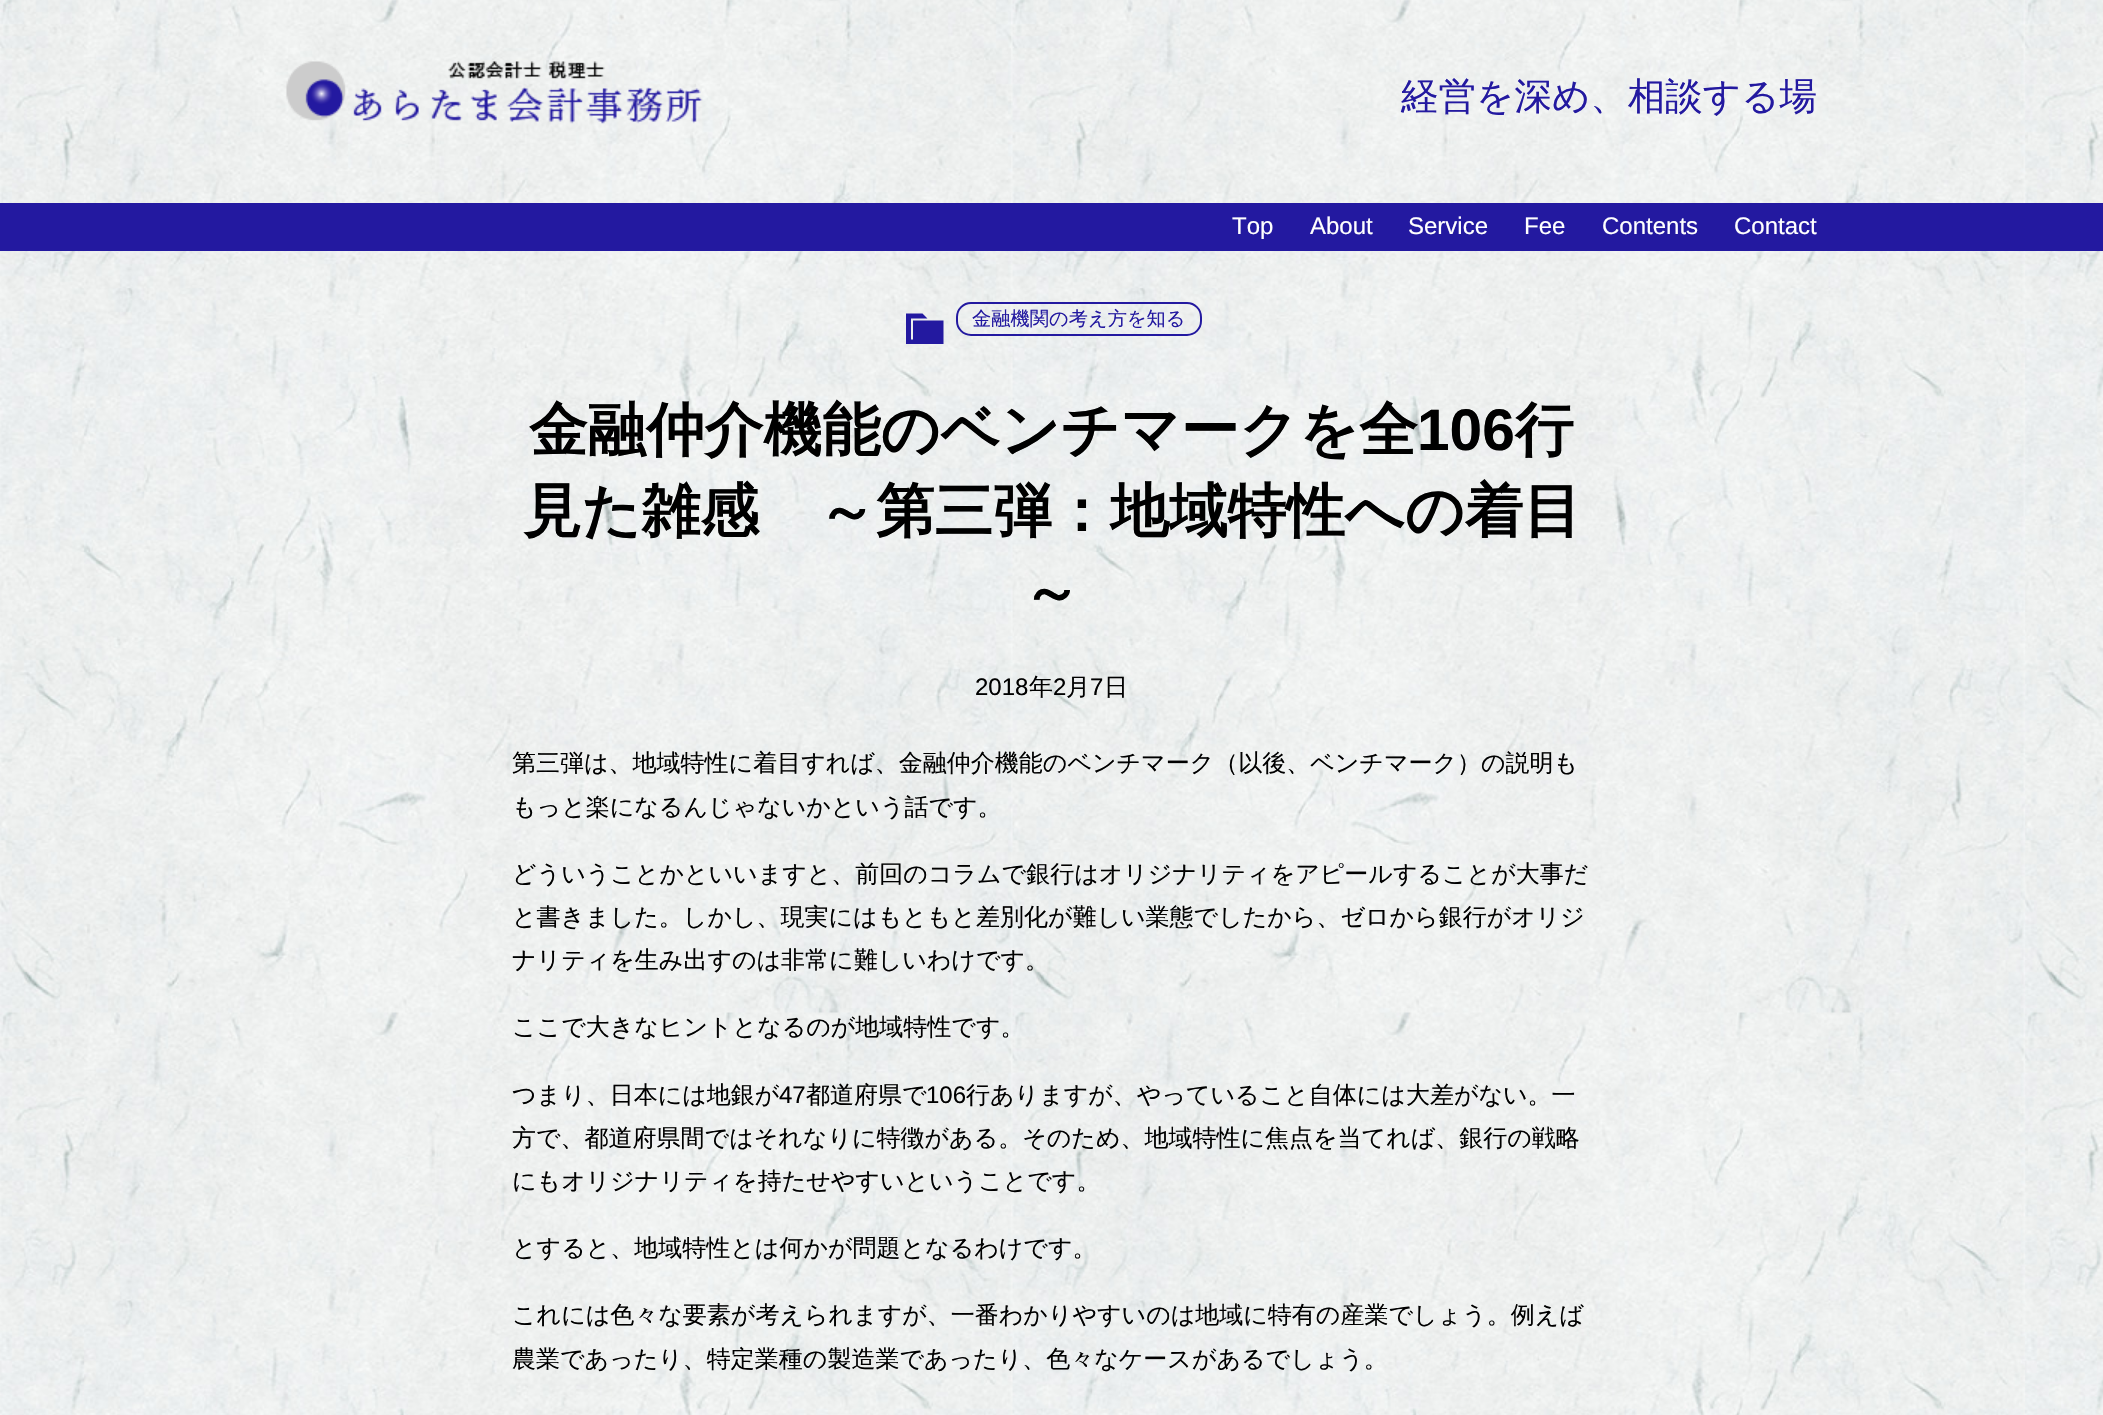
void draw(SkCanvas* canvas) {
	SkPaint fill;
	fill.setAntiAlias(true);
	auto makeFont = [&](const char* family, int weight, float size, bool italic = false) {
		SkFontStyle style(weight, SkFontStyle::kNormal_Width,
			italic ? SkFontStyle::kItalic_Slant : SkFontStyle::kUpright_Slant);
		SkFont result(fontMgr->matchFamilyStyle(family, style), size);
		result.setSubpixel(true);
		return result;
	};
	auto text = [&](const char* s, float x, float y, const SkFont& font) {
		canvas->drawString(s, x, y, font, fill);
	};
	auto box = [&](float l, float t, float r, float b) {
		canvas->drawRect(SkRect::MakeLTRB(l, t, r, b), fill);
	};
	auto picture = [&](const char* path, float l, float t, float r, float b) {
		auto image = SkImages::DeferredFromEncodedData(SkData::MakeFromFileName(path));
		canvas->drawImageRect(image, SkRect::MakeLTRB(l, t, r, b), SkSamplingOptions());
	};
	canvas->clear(0xFFFFFFFF);
	picture("image0.png", 0, 0, 2103, 1415);
	picture("image1.png", 286, 61, 703, 124);
	fill.setColor(0xFF2319A0);
	box(0, 203, 2103, 251);
	canvas->drawPath(SkPathBuilder().moveTo(913, 320.5f).lineTo(943.5f, 320.5f).lineTo(943.5f, 344).lineTo(906, 344).lineTo(906, 313.5f).lineTo(922.5f, 313.5f).lineTo(927.5f, 318.5f).lineTo(911, 318.5f).lineTo(911, 339.5f).lineTo(913, 339.5f).close().detach(), fill);
	fill.setStyle(SkPaint::kStroke_Style);
	fill.setStrokeWidth(2);
	canvas->drawRoundRect(SkRect::MakeLTRB(957, 303, 1201, 335), 14, 14, fill);
	auto font1 = makeFont("WenQuanYi Zen Hei", 500, 37.5f);
	fill.setStyle(SkPaint::kFill_Style);
	text("経営を深め、相談する場", 1401, 109, font1);
	auto font2 = makeFont("Liberation Sans", 400, 24);
	fill.setColor(0xFFFFFFFF);
	text("Top", 1232, 234, font2);
	text("About", 1310, 234, font2);
	text("Service", 1408, 234, font2);
	text("Fee", 1524, 234, font2);
	text("Contents", 1602, 234, font2);
	text("Contact", 1734, 234, font2);
	auto font3 = makeFont("WenQuanYi Zen Hei", 500, 19.25f);
	fill.setColor(0xFF2319A0);
	text("金融機関の考え方を知る", 972, 325, font3);
	auto font4 = makeFont("WenQuanYi Zen Hei", 700, 58.6f);
	fill.setColor(0xFF000000);
	text("金融仲介機能のベンチマークを全", 529, 450, font4);
	auto font5 = makeFont("Liberation Sans", 700, 58.6f);
	text("106", 1417, 450, font5);
	text("行", 1515, 450, font4);
	text("見た雑感　～第三弾：地域特性への着目", 523, 531, font4);
	text("～", 1022, 612, font4);
	text("2018", 975, 695, font2);
	auto font6 = makeFont("WenQuanYi Zen Hei", 500, 24);
	text("年", 1029, 695, font6);
	text("2", 1053, 695, font2);
	text("月", 1066, 695, font6);
	text("7", 1090, 695, font2);
	text("日", 1104, 695, font6);
	text("第三弾は、地域特性に着目すれば、金融仲介機能のベンチマーク（以後、ベンチマーク）の説明も", 512, 771, font6);
	text("もっと楽になるんじゃないかという話です。", 512, 815, font6);
	text("どういうことかといいますと、前回のコラムで銀行はオリジナリティをアピールすることが大事だ", 512, 882, font6);
	text("と書きました。しかし、現実にはもともと差別化が難しい業態でしたから、ゼロから銀行がオリジ", 512, 925, font6);
	text("ナリティを生み出すのは非常に難しいわけです。", 512, 968, font6);
	text("ここで大きなヒントとなるのが地域特性です。", 512, 1035, font6);
	text("つまり、日本には地銀が", 512, 1103, font6);
	text("47", 779, 1103, font2);
	text("都道府県で", 806, 1103, font6);
	text("106", 926, 1103, font2);
	text("行ありますが、やっていること自体には大差がない。一", 966, 1103, font6);
	text("方で、都道府県間ではそれなりに特徴がある。そのため、地域特性に焦点を当てれば、銀行の戦略", 512, 1146, font6);
	text("にもオリジナリティを持たせやすいということです。", 512, 1189, font6);
	text("とすると、地域特性とは何かが問題となるわけです。", 512, 1256, font6);
	text("これには色々な要素が考えられますが、一番わかりやすいのは地域に特有の産業でしょう。例えば", 512, 1323, font6);
	text("農業であったり、特定業種の製造業であったり、色々なケースがあるでしょう。", 512, 1367, font6);
}
